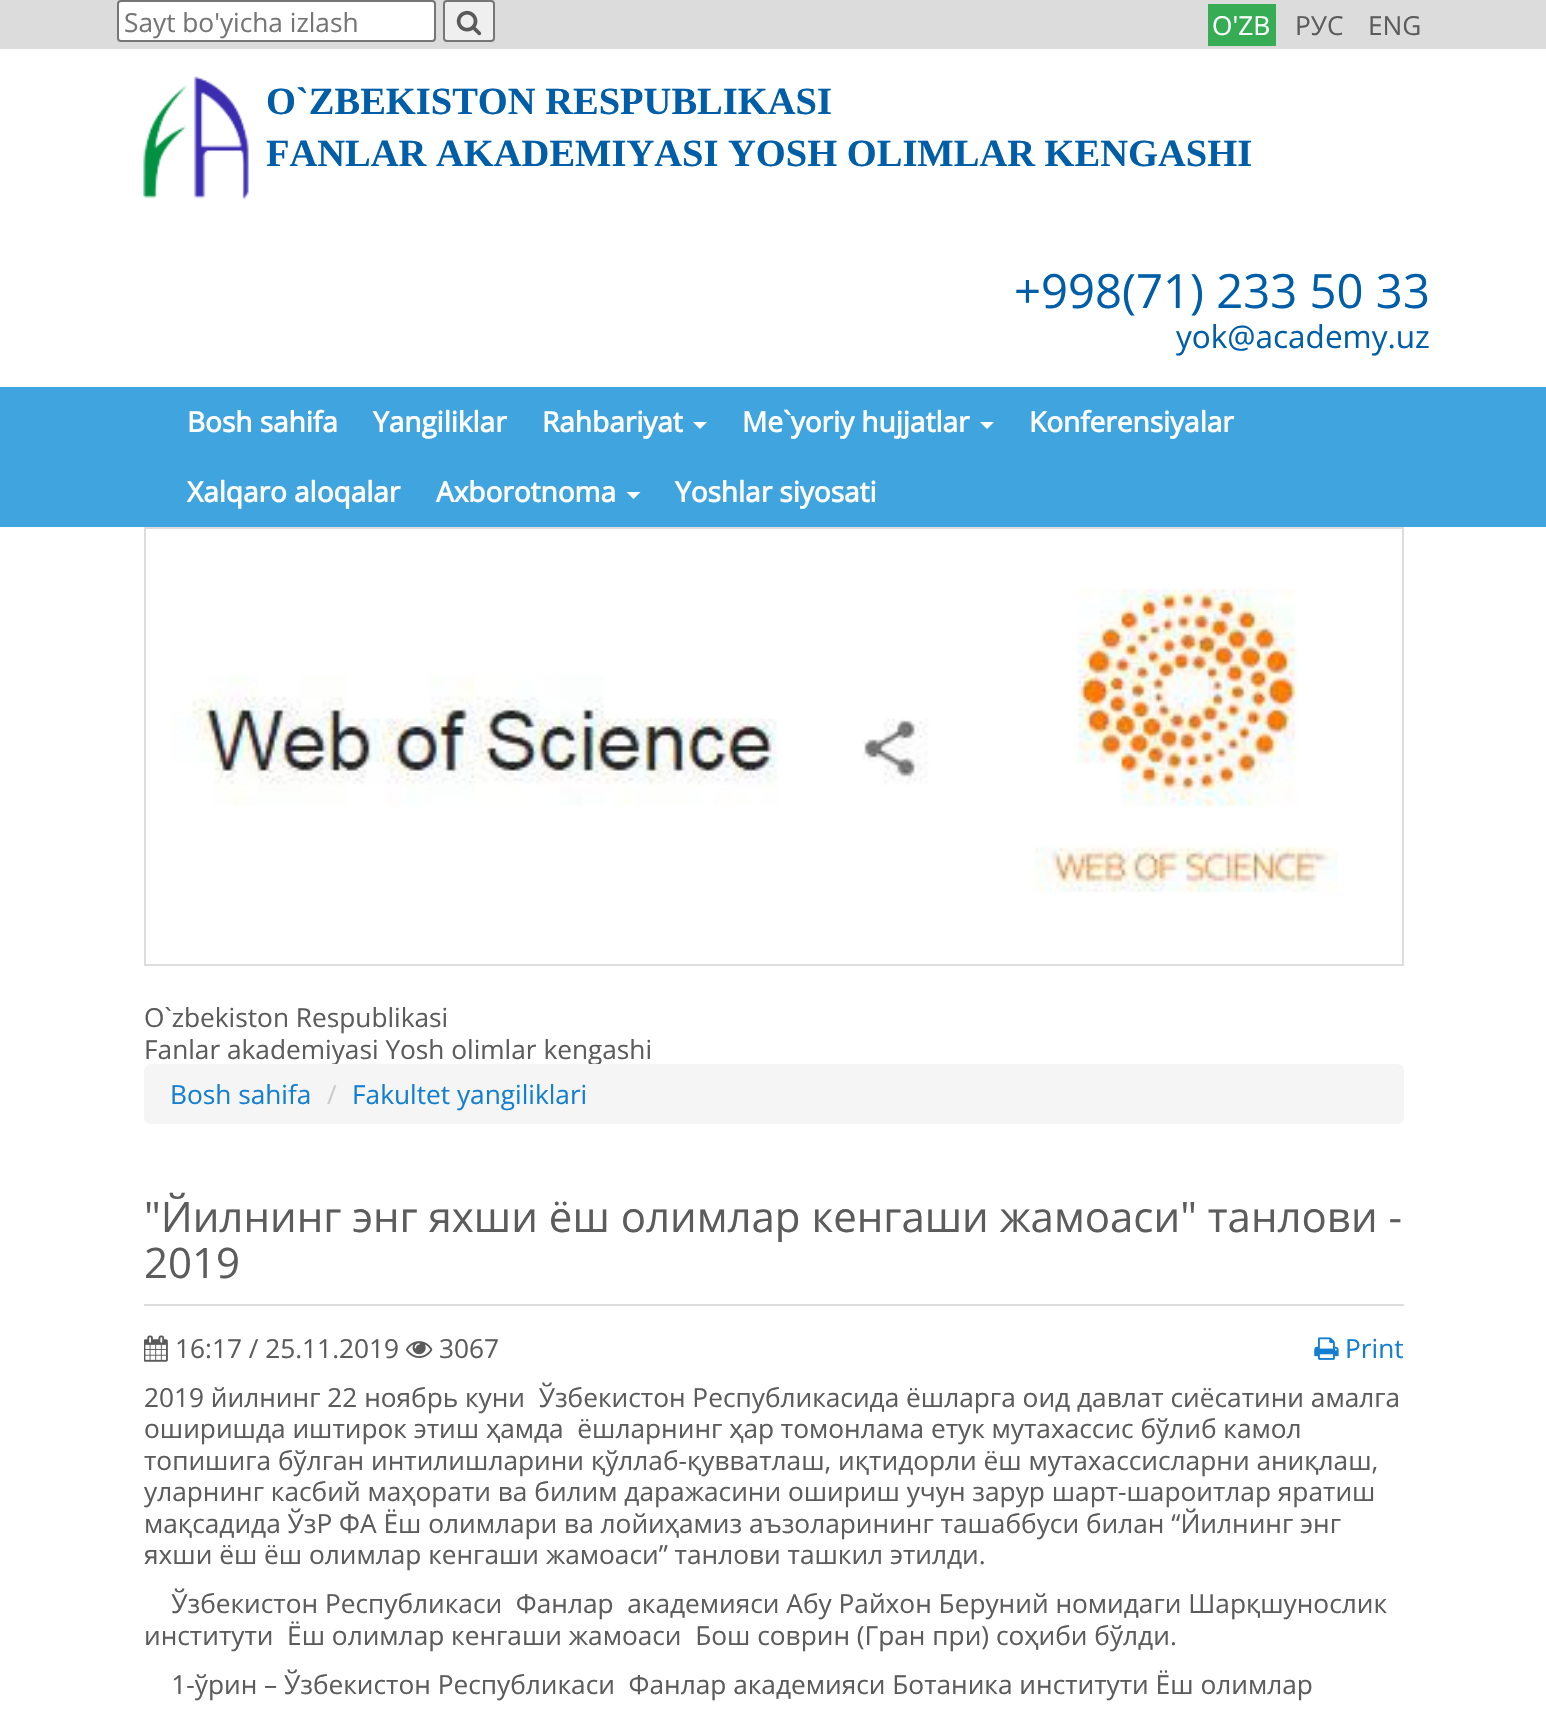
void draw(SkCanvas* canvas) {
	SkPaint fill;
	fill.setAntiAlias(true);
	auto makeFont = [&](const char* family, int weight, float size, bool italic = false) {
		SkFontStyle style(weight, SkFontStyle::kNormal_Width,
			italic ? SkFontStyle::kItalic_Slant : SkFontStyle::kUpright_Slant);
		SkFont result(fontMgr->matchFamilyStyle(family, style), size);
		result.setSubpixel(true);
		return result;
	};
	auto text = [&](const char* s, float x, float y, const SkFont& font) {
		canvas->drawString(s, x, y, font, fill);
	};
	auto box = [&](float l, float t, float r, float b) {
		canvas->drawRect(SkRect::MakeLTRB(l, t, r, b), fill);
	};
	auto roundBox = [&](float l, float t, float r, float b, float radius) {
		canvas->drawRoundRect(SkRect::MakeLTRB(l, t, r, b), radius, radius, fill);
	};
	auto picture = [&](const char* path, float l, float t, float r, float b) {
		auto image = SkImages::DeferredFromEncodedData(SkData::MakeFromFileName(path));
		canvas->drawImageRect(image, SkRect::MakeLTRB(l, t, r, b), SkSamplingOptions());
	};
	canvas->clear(0xFFFFFFFF);
	fill.setColor(0xFFDCDCDC);
	box(0, 0, 1546, 49);
	fill.setColor(0xFFFFFFFF);
	canvas->drawRoundRect(SkRect::MakeLTRB(118, 1, 435, 41), 3, 3, fill);
	fill.setStyle(SkPaint::kStroke_Style);
	fill.setStrokeWidth(2);
	fill.setColor(0xFF767676);
	canvas->drawRoundRect(SkRect::MakeLTRB(118, 1, 435, 41), 3, 3, fill);
	fill.setStyle(SkPaint::kFill_Style);
	fill.setColor(0xFFEFEFEF);
	canvas->drawRoundRect(SkRect::MakeLTRB(444, 1, 494, 41), 3, 3, fill);
	fill.setStyle(SkPaint::kStroke_Style);
	fill.setColor(0xFF767676);
	canvas->drawRoundRect(SkRect::MakeLTRB(444, 1, 494, 41), 3, 3, fill);
	picture("image0.png", 456, 10, 482, 36);
	fill.setStyle(SkPaint::kFill_Style);
	fill.setColor(0xFF36AC54);
	box(1208, 4, 1276, 46);
	picture("image1.png", 143, 76, 249, 200);
	fill.setColor(0xFF40A4DF);
	box(0, 387, 1546, 527);
	fill.setColor(0xFFFFFFFF);
	canvas->drawPath(SkPathBuilder().moveTo(693, 422).lineTo(707, 422).lineTo(700, 429).close().detach(), fill);
	canvas->drawPath(SkPathBuilder().moveTo(980, 422).lineTo(994, 422).lineTo(987, 429).close().detach(), fill);
	canvas->drawPath(SkPathBuilder().moveTo(626.5f, 492).lineTo(640.5f, 492).lineTo(633.5f, 499).close().detach(), fill);
	fill.setStyle(SkPaint::kStroke_Style);
	fill.setColor(0xFFDDDDDD);
	canvas->drawRect(SkRect::MakeLTRB(145, 528, 1403, 965), fill);
	picture("image2.png", 172, 587, 1338, 893);
	fill.setStyle(SkPaint::kFill_Style);
	box(144, 1304, 1404, 1306);
	picture("image3.png", 144, 1335, 168, 1362);
	picture("image4.png", 406, 1341, 433, 1358);
	picture("image5.png", 1314, 1337, 1339, 1360);
	auto font1 = makeFont("Open Sans", 400, 26.25f);
	fill.setColor(0xFF757575);
	text("Sayt bo'yicha izlash", 124, 32, font1);
	fill.setColor(0xFFFFFFFF);
	text("O'ZB", 1212, 35, font1);
	fill.setColor(0xFF5C5C5C);
	text("РУС", 1295, 35, font1);
	text("ENG", 1368, 35, font1);
	auto font2 = makeFont("Liberation Serif", 700, 38.5f);
	fill.setColor(0xFF005EA8);
	text("O`ZBEKISTON RESPUBLIKASI", 266, 114, font2);
	text("FANLAR AKADEMIYASI YOSH OLIMLAR KENGASHI", 266, 166, font2);
	auto font3 = makeFont("Open Sans", 400, 47.25f);
	text("+998(71) 233 50 33", 1014, 308, font3);
	auto font4 = makeFont("Open Sans", 400, 31.5f);
	text("yok@academy.uz", 1176, 348, font4);
	auto font5 = makeFont("Open Sans", 700, 28);
	fill.setColor(0xFFFFFFFF);
	text("Bosh sahifa", 187, 432, font5);
	text("Yangiliklar", 373, 432, font5);
	text("Rahbariyat", 542, 432, font5);
	text("Me`yoriy hujjatlar", 742, 432, font5);
	text("Konferensiyalar", 1029, 432, font5);
	text("Xalqaro aloqalar", 187, 502, font5);
	text("Axborotnoma", 436, 502, font5);
	text("Yoshlar siyosati", 675, 502, font5);
	fill.setColor(0xFF5C5C5C);
	text("O`zbekiston Respublikasi", 144, 1027, font1);
	text("Fanlar akademiyasi Yosh olimlar kengashi", 144, 1059, font1);
	fill.setColor(0xFFF5F5F5);
	roundBox(144, 1064, 1404, 1124, 7);
	fill.setColor(0xFF147ED1);
	text("Bosh sahifa", 170, 1104, font1);
	fill.setColor(0xFFCCCCCC);
	text("/", 327, 1104, font1);
	fill.setColor(0xFF147ED1);
	text("Fakultet yangiliklari", 352, 1104, font1);
	auto font6 = makeFont("Open Sans", 400, 42);
	fill.setColor(0xFF5C5C5C);
	text("\"Йилнинг энг яхши ёш олимлар кенгаши жамоаси\" танлови -", 144, 1232, font6);
	text("2019", 144, 1278, font6);
	text("16:17 / 25.11.2019", 175, 1358, font1);
	text("3067", 439, 1358, font1);
	fill.setColor(0xFF147ED1);
	text("Print", 1345, 1358, font1);
	fill.setColor(0xFF5C5C5C);
	text("2019 йилнинг 22 ноябрь куни  Ўзбекистон Республикасида ёшларга оид давлат сиёсатини амалга", 144, 1407, font1);
	text("оширишда иштирок этиш ҳамда  ёшларнинг ҳар томонлама етук мутахассис бўлиб камол", 144, 1438, font1);
	text("топишига бўлган интилишларини қўллаб-қувватлаш, иқтидорли ёш мутахассисларни аниқлаш,", 144, 1470, font1);
	canvas->save();
	canvas->clipRect(SkRect::MakeLTRB(144, 1159, 1404, 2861));
	text("уларнинг касбий маҳорати ва билим даражасини ошириш учун зарур шарт-шароитлар яратиш", 144, 1501, font1);
	canvas->restore();
	text("мақсадида ЎзР ФА Ёш олимлари ва лойиҳамиз аъзоларининг ташаббуси билан “Йилнинг энг", 144, 1533, font1);
	text("яхши ёш ёш олимлар кенгаши жамоаси” танлови ташкил этилди.", 144, 1564, font1);
	text("    Ўзбекистон Республикаси  Фанлар  академияси Абу Райхон Беруний номидаги Шарқшунослик", 144, 1613, font1);
	text("институти  Ёш олимлар кенгаши жамоаси  Бош соврин (Гран при) соҳиби бўлди.", 144, 1645, font1);
	text("    1-ўрин – Ўзбекистон Республикаси  Фанлар академияси Ботаника институти Ёш олимлар", 144, 1694, font1);
}
